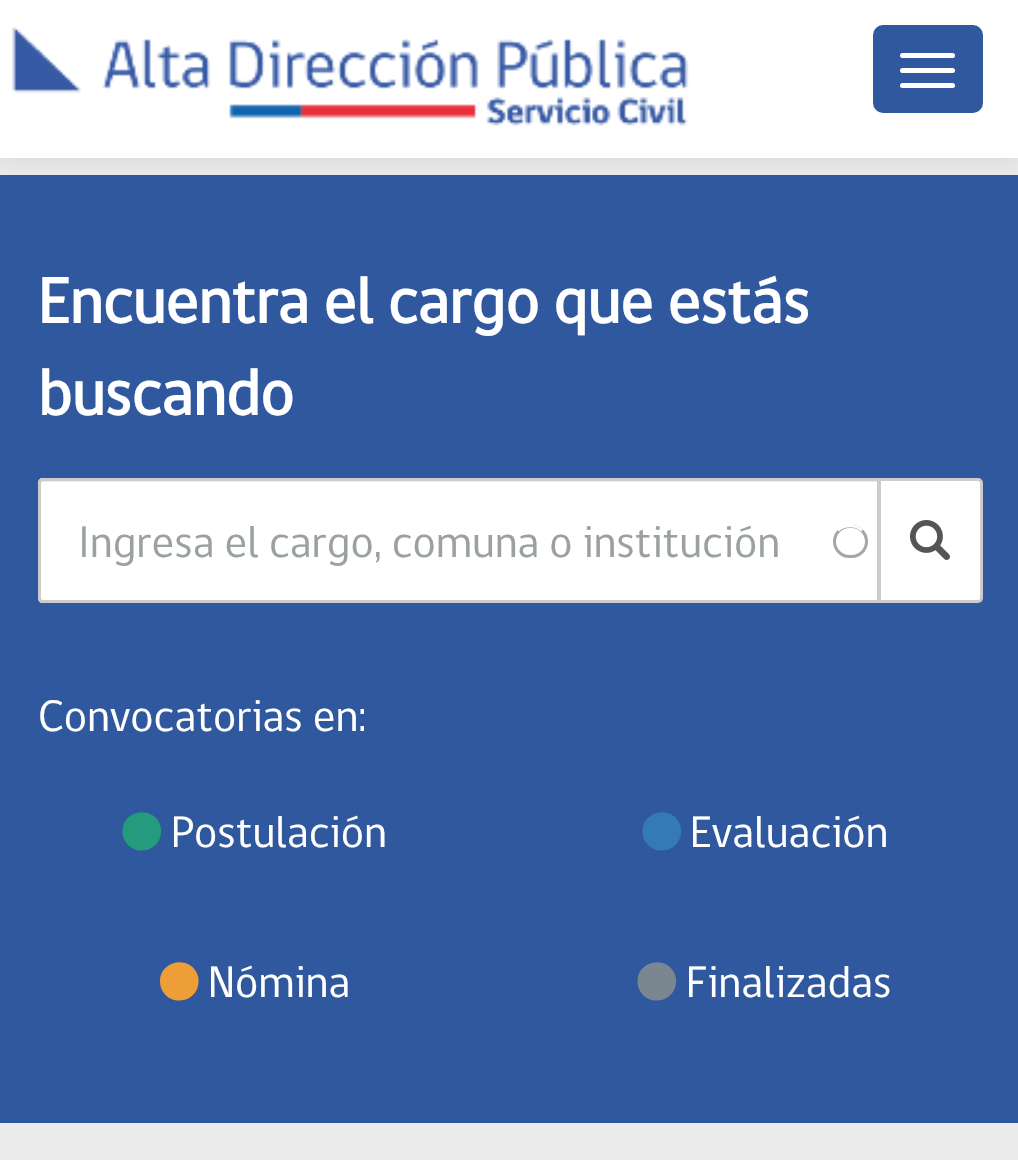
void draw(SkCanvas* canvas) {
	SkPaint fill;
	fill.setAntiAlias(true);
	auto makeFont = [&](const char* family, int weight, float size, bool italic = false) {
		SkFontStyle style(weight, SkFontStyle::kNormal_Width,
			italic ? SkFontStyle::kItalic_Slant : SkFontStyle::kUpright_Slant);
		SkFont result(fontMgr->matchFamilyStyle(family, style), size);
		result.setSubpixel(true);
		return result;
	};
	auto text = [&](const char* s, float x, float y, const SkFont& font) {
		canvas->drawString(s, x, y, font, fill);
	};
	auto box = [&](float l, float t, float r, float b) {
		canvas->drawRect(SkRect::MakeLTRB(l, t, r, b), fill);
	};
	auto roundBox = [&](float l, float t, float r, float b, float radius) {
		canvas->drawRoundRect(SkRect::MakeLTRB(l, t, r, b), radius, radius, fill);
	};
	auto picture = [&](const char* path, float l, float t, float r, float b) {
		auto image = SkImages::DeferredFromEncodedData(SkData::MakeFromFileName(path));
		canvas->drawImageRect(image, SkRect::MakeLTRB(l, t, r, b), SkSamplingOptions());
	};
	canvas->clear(0xFFEBEBEB);
	fill.setColor(0xFF30589E);
	box(0, 175, 1018, 1123);
	fill.setColor(0x1A000000);
	fill.setMaskFilter(SkMaskFilter::MakeBlur(kNormal_SkBlurStyle, 12.5f));
	canvas->drawRect(SkRect::MakeLTRB(0, 0, 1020, 158), fill);
	fill.setMaskFilter(nullptr);
	fill.setColor(0xFFFFFFFF);
	box(0, 0, 1018, 158);
	picture("image0.png", 12, 27, 689, 126);
	fill.setColor(0xFF30589E);
	canvas->drawRoundRect(SkRect::MakeLTRB(874.5f, 26.5f, 981.5f, 111.5f), 8.5f, 8.5f, fill);
	fill.setStyle(SkPaint::kStroke_Style);
	fill.setStrokeWidth(3);
	canvas->drawRoundRect(SkRect::MakeLTRB(874.5f, 26.5f, 981.5f, 111.5f), 8.5f, 8.5f, fill);
	fill.setStyle(SkPaint::kFill_Style);
	fill.setColor(0xFFFFFFFF);
	roundBox(900, 53, 955, 58, 2.5f);
	roundBox(900, 68, 955, 73, 2.5f);
	roundBox(900, 83, 955, 88, 2.5f);
	canvas->drawPath(SkPathBuilder().moveTo(879.5f, 479.5f).lineTo(978, 479.5f).cubicTo(980, 479.5f, 981.5f, 481, 981.5f, 483).lineTo(981.5f, 598).cubicTo(981.5f, 600, 980, 601.5f, 978, 601.5f).lineTo(879.5f, 601.5f).close().detach(), fill);
	fill.setStyle(SkPaint::kStroke_Style);
	fill.setColor(0xFFCCCCCC);
	canvas->drawPath(SkPathBuilder().moveTo(879.5f, 479.5f).lineTo(978, 479.5f).cubicTo(980, 479.5f, 981.5f, 481, 981.5f, 483).lineTo(981.5f, 598).cubicTo(981.5f, 600, 980, 601.5f, 978, 601.5f).lineTo(879.5f, 601.5f).close().detach(), fill);
	fill.setStyle(SkPaint::kFill_Style);
	fill.setColor(0xFFFFFFFF);
	canvas->drawPath(SkPathBuilder().moveTo(43, 478).lineTo(880, 478).lineTo(880, 603).lineTo(43, 603).cubicTo(40, 603, 38, 601, 38, 598).lineTo(38, 483).cubicTo(38, 480, 40, 478, 43, 478).close().detach(), fill);
	fill.setColor(0xFFECECEC);
	canvas->drawPath(SkPathBuilder().moveTo(42, 482).lineTo(878, 482).lineTo(878, 480).lineTo(42, 480).cubicTo(40, 480, 40, 483, 40, 485).cubicTo(40, 484, 41, 482, 42, 482).close().detach(), fill);
	fill.setStyle(SkPaint::kStroke_Style);
	fill.setColor(0xFFCCCCCC);
	canvas->drawPath(SkPathBuilder().moveTo(43, 479.5f).lineTo(878.5f, 479.5f).lineTo(878.5f, 601.5f).lineTo(43, 601.5f).cubicTo(41, 601.5f, 39.5f, 600, 39.5f, 598).lineTo(39.5f, 483).cubicTo(39.5f, 481, 41, 479.5f, 43, 479.5f).close().detach(), fill);
	fill.setColor(0xFFA6A6A6);
	canvas->drawRoundRect(SkRect::MakeLTRB(834.5f, 526.5f, 866.5f, 556.5f), 15, 15, fill);
	fill.setStrokeWidth(2.5f);
	fill.setColor(0xFFFFFFFF);
	canvas->drawPath(SkPathBuilder().moveTo(838, 530.5f).cubicTo(844, 524.5f, 856, 524.5f, 862, 530.5f).detach(), fill);
	picture("image1.png", 910, 520, 950, 560);
	fill.setStyle(SkPaint::kFill_Style);
	fill.setColor(0xFF249B7D);
	canvas->drawPath(SkPathBuilder().moveTo(125, 841).cubicTo(123, 838, 122.5f, 834, 122.5f, 830).cubicTo(123.5f, 811.5f, 149, 805.5f, 158.5f, 821.5f).cubicTo(160.5f, 825, 161.5f, 829, 161, 832.5f).cubicTo(160, 851.5f, 134.5f, 857.5f, 125, 841).close().detach(), fill);
	fill.setColor(0xFF337AB7);
	canvas->drawPath(SkPathBuilder().moveTo(645, 841).cubicTo(643, 838, 642.5f, 834, 642.5f, 830).cubicTo(643.5f, 811.5f, 669, 805.5f, 678.5f, 821.5f).cubicTo(680.5f, 825, 681.5f, 829, 681, 832.5f).cubicTo(680, 851.5f, 654.5f, 857.5f, 645, 841).close().detach(), fill);
	fill.setColor(0xFFEE9E37);
	canvas->drawPath(SkPathBuilder().moveTo(162.5f, 991).cubicTo(160.5f, 988, 160, 984, 160, 980).cubicTo(161, 961.5f, 186.5f, 955.5f, 196, 971.5f).cubicTo(198, 975, 199, 979, 198.5f, 982.5f).cubicTo(197.5f, 1001.5f, 172, 1007.5f, 162.5f, 991).close().detach(), fill);
	fill.setColor(0xFF7A8791);
	canvas->drawPath(SkPathBuilder().moveTo(640, 991).cubicTo(638, 988, 637.5f, 984, 637.5f, 980).cubicTo(638.5f, 961.5f, 664, 955.5f, 673.5f, 971.5f).cubicTo(675.5f, 975, 676.5f, 979, 676, 982.5f).cubicTo(675, 1001.5f, 649.5f, 1007.5f, 640, 991).close().detach(), fill);
	auto font1 = makeFont("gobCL", 700, 65);
	fill.setColor(0xFFFFFFFF);
	text("Encuentra el cargo que estás", 38, 323, font1);
	text("buscando", 38, 415, font1);
	auto font2 = makeFont("gobCL", 400, 45);
	fill.setColor(0xFF9BA1A3);
	text("Ingresa el cargo, comuna o institución", 78, 557, font2);
	fill.setColor(0xFFFFFFFF);
	text("Convocatorias en:", 38, 731, font2);
	text("Postulación", 171, 847, font2);
	text("Evaluación", 690, 847, font2);
	text("Nómina", 208, 997, font2);
	text("Finalizadas", 686, 997, font2);
}
